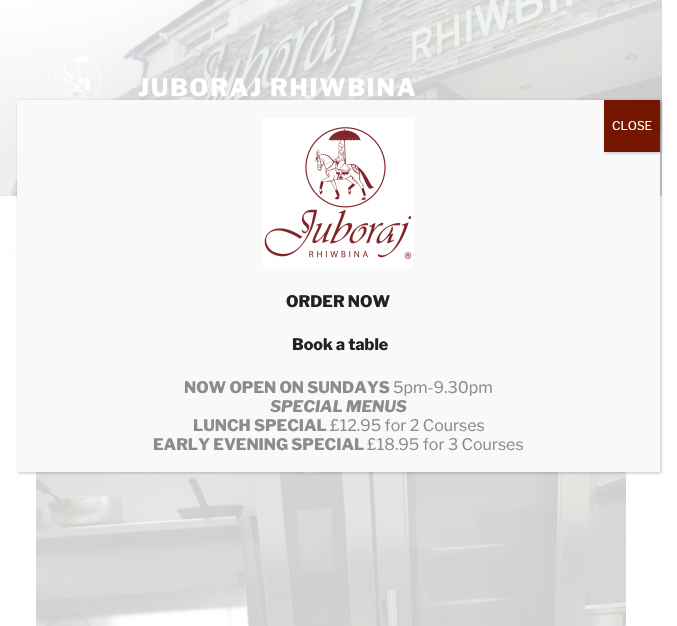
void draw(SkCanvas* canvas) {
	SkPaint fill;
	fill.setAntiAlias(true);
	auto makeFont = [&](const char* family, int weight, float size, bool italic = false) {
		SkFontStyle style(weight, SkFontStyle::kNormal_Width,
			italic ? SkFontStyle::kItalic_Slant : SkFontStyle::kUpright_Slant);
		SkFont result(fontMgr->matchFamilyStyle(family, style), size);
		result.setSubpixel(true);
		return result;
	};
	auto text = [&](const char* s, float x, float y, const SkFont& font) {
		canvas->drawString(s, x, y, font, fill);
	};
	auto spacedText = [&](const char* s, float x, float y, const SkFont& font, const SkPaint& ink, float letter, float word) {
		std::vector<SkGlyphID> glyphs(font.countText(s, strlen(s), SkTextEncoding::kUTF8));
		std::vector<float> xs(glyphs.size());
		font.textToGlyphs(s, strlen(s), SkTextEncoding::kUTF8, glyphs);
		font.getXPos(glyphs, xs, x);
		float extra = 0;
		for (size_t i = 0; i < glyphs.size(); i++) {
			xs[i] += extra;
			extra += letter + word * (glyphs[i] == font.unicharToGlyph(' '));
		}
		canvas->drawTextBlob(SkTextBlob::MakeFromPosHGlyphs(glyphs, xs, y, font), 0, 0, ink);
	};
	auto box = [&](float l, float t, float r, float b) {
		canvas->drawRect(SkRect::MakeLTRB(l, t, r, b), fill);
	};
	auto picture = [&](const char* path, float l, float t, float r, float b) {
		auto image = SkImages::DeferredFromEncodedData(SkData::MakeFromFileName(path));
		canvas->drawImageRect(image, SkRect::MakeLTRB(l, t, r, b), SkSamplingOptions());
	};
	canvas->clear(0xFFFFFFFF);
	picture("image0.png", 0, 0, 662, 196);
	picture("image1.png", 54, 54, 101, 100);
	fill.setColor(0xFFFCFCFC);
	box(0, 197, 662, 198);
	box(0, 250, 662, 251);
	picture("image2.png", 36, 472, 626, 626);
	fill.setColor(0x3B020202);
	fill.setMaskFilter(SkMaskFilter::MakeBlur(kNormal_SkBlurStyle, 1.5f));
	canvas->drawRect(SkRect::MakeLTRB(18, 101, 661, 473), fill);
	fill.setMaskFilter(nullptr);
	fill.setColor(0xFFF9F9F9);
	box(17, 100, 660, 472);
	fill.setColor(0x3B020202);
	fill.setMaskFilter(SkMaskFilter::MakeBlur(kNormal_SkBlurStyle, 1.5f));
	canvas->drawRect(SkRect::MakeLTRB(605, 101, 661, 153), fill);
	fill.setMaskFilter(nullptr);
	fill.setColor(0xFF751700);
	box(604, 100, 660, 152);
	picture("image3.png", 263, 118, 413, 268);
	auto font1 = makeFont("Libre Franklin", 100, 24);
	fill.setColor(0xFFFFFFFF);
	spacedText("JUBORAJ RHIWBINA", 138, 96, font1, fill, 1.9f, 0);
	auto font2 = makeFont("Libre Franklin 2", 100, 12);
	text("CLOSE", 612, 130, font2);
	auto font3 = makeFont("Libre Franklin", 100, 16);
	fill.setColor(0xFF222222);
	text("ORDER NOW", 286, 307, font3);
	text("Book a table", 292, 350, font3);
	fill.setColor(0xFF8C8C8C);
	text("NOW OPEN ON SUNDAYS", 184, 393, font3);
	auto font4 = makeFont("Libre Franklin 2", 100, 16);
	text("5pm-9.30pm", 393, 393, font4);
	auto font5 = makeFont("Libre Franklin", 100, 16, true);
	text("SPECIAL MENUS", 270, 412, font5);
	text("LUNCH SPECIAL", 193, 431, font3);
	text("£12.95 for 2 Courses", 330, 431, font4);
	text("EARLY EVENING SPECIAL", 153, 450, font3);
	text("£18.95 for 3 Courses", 367, 450, font4);
}
